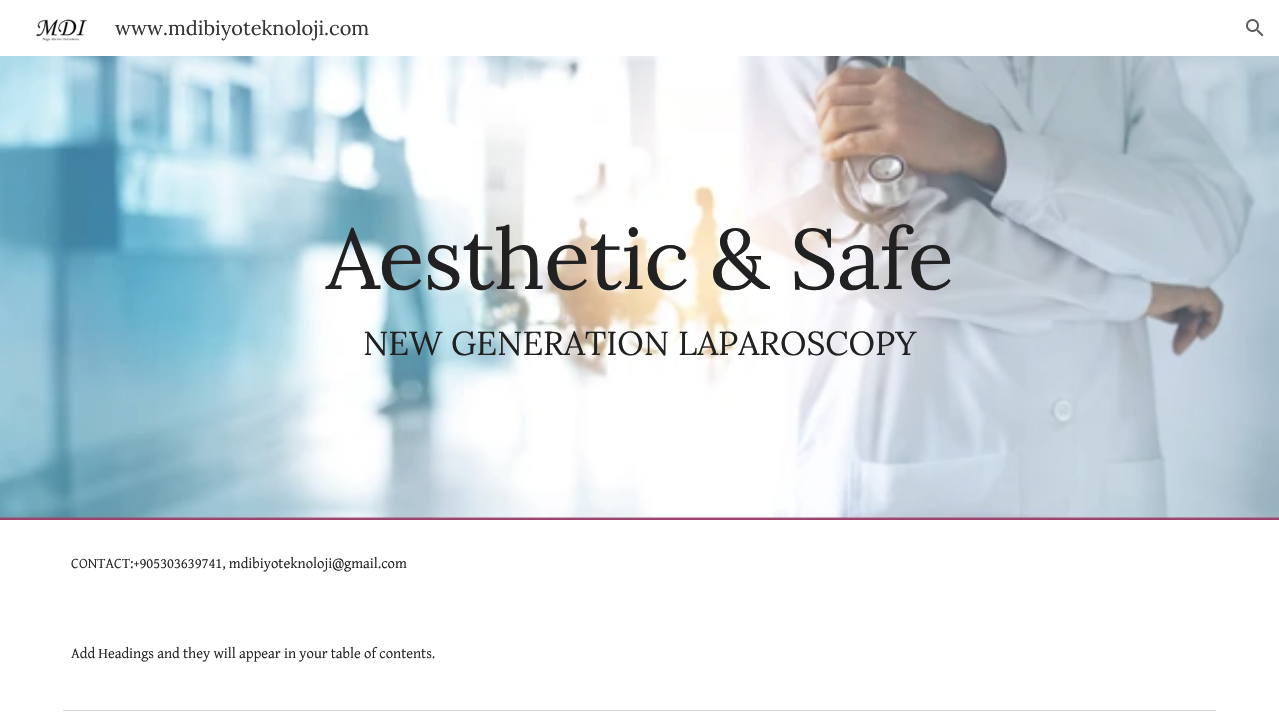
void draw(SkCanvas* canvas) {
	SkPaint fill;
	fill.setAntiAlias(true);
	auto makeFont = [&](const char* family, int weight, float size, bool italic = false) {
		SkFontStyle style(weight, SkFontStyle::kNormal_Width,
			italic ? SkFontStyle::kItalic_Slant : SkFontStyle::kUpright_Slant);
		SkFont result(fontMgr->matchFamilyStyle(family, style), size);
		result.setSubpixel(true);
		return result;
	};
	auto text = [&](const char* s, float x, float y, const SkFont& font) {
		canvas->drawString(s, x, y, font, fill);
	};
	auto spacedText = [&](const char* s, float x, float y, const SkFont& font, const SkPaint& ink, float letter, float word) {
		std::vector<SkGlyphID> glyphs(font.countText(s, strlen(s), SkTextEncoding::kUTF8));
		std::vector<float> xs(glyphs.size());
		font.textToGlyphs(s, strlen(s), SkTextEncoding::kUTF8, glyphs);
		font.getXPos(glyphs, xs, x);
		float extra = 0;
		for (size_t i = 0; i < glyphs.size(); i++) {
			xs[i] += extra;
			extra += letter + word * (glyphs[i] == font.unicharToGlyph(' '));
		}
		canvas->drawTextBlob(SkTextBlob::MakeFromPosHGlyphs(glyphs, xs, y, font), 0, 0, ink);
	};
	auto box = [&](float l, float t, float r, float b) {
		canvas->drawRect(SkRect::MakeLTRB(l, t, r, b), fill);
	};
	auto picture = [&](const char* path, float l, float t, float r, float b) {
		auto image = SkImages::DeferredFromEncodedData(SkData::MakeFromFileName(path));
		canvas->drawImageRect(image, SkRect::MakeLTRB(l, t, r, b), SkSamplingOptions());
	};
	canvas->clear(0xFFFFFFFF);
	picture("image0.png", 36, 19, 88, 42);
	picture("image1.png", 1246, 19, 1264, 37);
	fill.setColor(0xFF99416B);
	box(0, 517, 1279, 520);
	picture("image2.png", 0, 56, 1279, 519);
	fill.setColor(0xFFD9D9D9);
	box(63, 710, 1216, 711);
	auto font1 = makeFont("Lora", 400, 20);
	fill.setColor(0xFF333333);
	text("www.mdibiyoteknoloji.com", 115, 35, font1);
	auto font2 = makeFont("Lora", 400, 85.25f);
	fill.setColor(0xFF212121);
	spacedText("Aesthetic & Safe", 326, 289, font2, fill, -1, 0);
	auto font3 = makeFont("Lora", 400, 33.3f);
	text("NEW GENERATION LAPAROSCOPY", 363, 355, font3);
	auto font4 = makeFont("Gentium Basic", 400, 14.7f);
	text("CONTACT:+905303639741, mdibiyoteknoloji@gmail.com", 71, 568, font4);
	text("Add Headings and they will appear in your table of contents.", 71, 658, font4);
}
